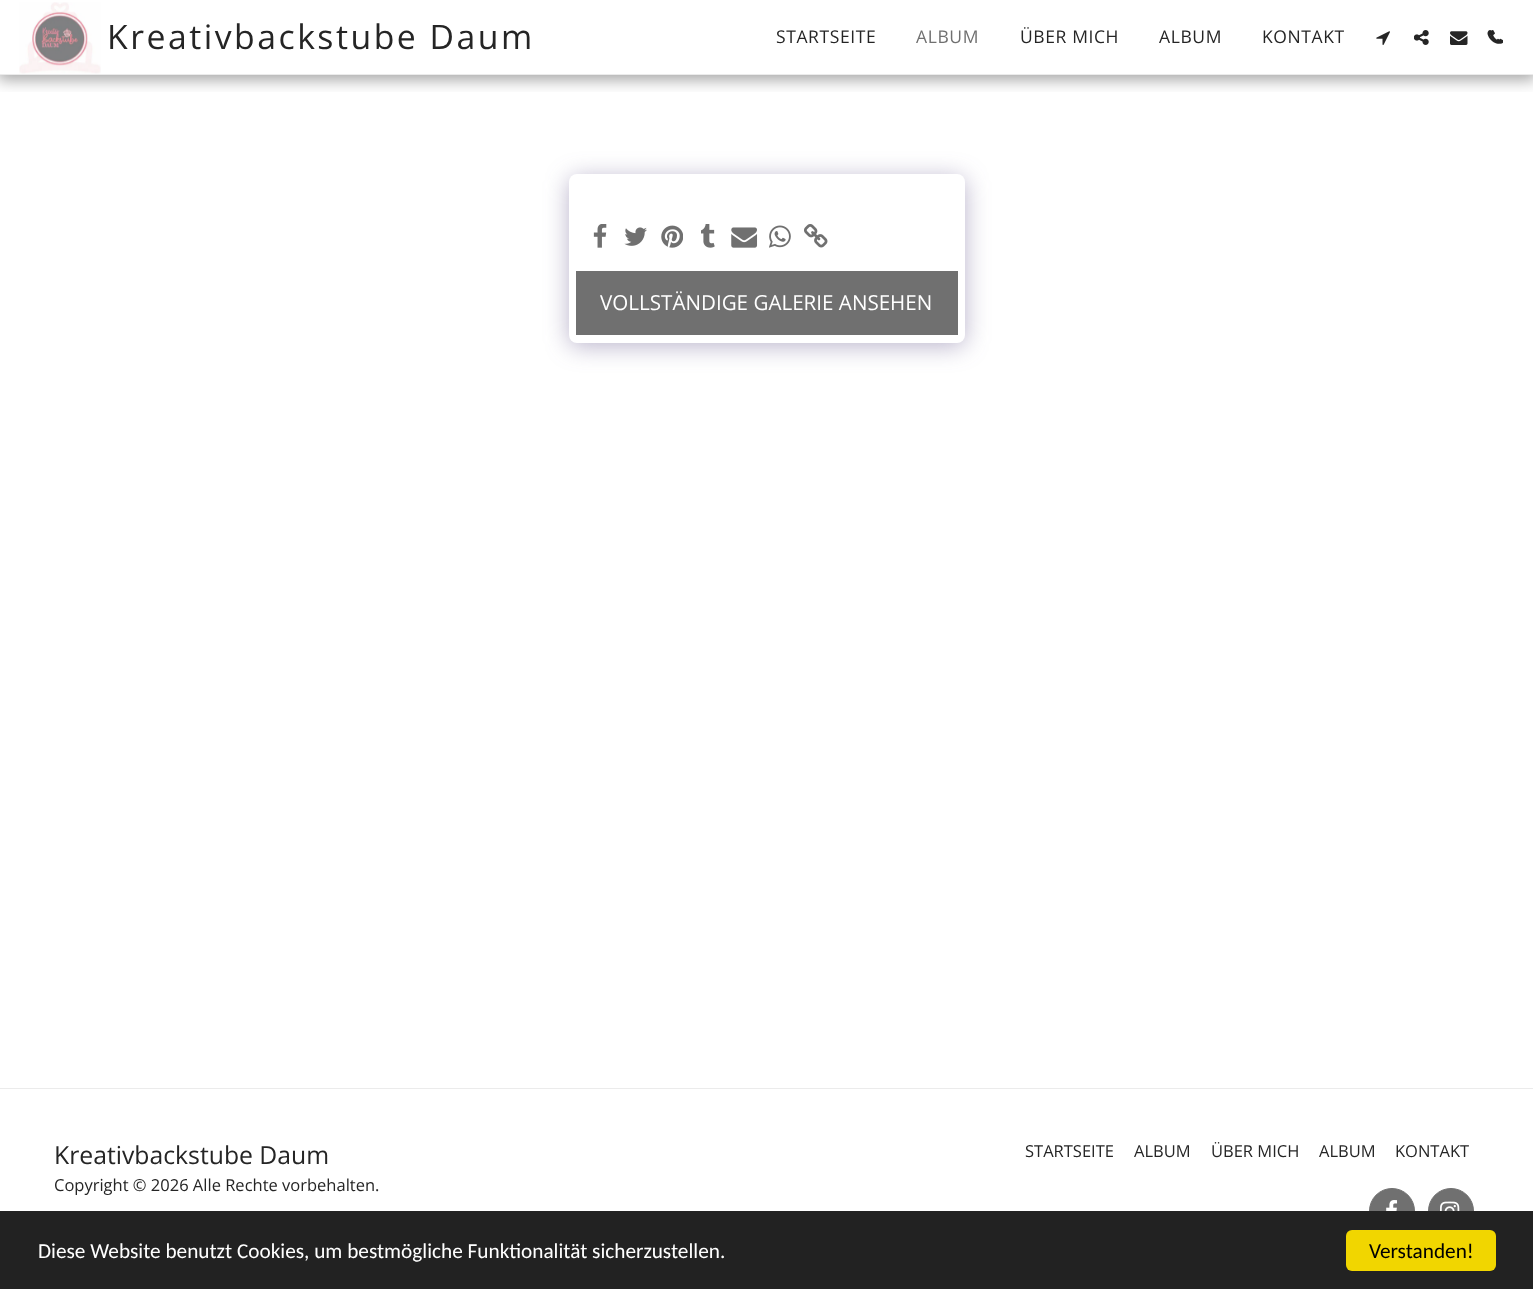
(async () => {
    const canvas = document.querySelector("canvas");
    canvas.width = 1533;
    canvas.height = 1289;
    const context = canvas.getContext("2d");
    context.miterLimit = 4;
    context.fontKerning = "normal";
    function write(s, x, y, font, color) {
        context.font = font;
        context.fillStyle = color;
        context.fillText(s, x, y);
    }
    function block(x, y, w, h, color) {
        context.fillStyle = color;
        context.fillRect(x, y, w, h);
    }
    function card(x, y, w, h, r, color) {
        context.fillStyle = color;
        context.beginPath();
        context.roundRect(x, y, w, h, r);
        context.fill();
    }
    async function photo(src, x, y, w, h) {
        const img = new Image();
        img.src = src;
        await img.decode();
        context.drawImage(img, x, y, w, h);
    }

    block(0, 0, 1533, 1289, "rgb(255, 255, 255)");
    context.save();
    context.beginPath();
    context.rect(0, 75, 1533, 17);
    context.clip();
    context.fillStyle = "rgba(0, 0, 0, 0.35)";
    context.filter = "blur(7.5px)";
    context.beginPath();
    context.rect(-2, 0, 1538, 80);
    context.fill();
    context.filter = "none";
    context.restore();
    block(0, 74, 1533, 1, "rgb(235, 235, 235)");
    await photo("media/1.png", 19, 2, 82, 72);
    context.letterSpacing = "2.5px";
    write("Kreativbackstube Daum", 107, 49, "33.75px Open Sans", "rgb(37, 37, 37)");
    context.letterSpacing = "0.6px";
    write("STARTSEITE", 776, 43, "17.5px Open Sans", "rgb(37, 37, 37)");
    write("ALBUM", 916, 43, "17.5px Open Sans", "rgb(112, 112, 112)");
    write("ÜBER MICH", 1020, 43, "17.5px Open Sans", "rgb(37, 37, 37)");
    write("ALBUM", 1159, 43, "17.5px Open Sans", "rgb(37, 37, 37)");
    write("KONTAKT", 1262, 43, "17.5px Open Sans", "rgb(37, 37, 37)");
    await photo("media/2.png", 1376, 31, 14, 14);
    await photo("media/3.png", 1414, 30, 15, 15);
    await photo("media/4.png", 1450, 31, 18, 14);
    await photo("media/5.png", 1490, 30, 13, 14);
    await photo("media/6.png", 1487, 30, 13, 14);
    context.fillStyle = "rgba(77, 63, 122, 0.4)";
    context.filter = "blur(12.5px)";
    context.beginPath();
    context.roundRect(569, 178, 396, 168, 8);
    context.fill();
    context.filter = "none";
    card(569, 174, 396, 169, 8, "rgb(255, 255, 255)");
    await photo("media/7.png", 593, 224, 14, 24);
    await photo("media/8.png", 624, 227, 23, 19);
    await photo("media/9.png", 661, 225, 22, 23);
    await photo("media/10.png", 701, 224, 14, 24);
    await photo("media/11.png", 731, 227, 27, 21);
    await photo("media/12.png", 769, 225, 22, 23);
    await photo("media/13.png", 804, 224, 24, 24);
    block(576, 271, 382, 64, "rgb(112, 112, 112)");
    context.letterSpacing = "0px";
    write("VOLLSTÄNDIGE GALERIE ANSEHEN", 600, 310, "20.6px Open Sans", "rgb(255, 255, 255)");
    block(0, 1088, 1533, 1, "rgb(235, 235, 235)");
    write("Kreativbackstube Daum", 54, 1164, "24.75px Open Sans", "rgb(37, 37, 37)");
    write("Copyright © 2026 Alle Rechte vorbehalten.", 54, 1191, "16.5px Open Sans", "rgb(37, 37, 37)");
    write("STARTSEITE", 1025, 1157, "16.5px Open Sans", "rgb(37, 37, 37)");
    write("ALBUM", 1134, 1157, "16.5px Open Sans", "rgb(37, 37, 37)");
    write("ÜBER MICH", 1211, 1157, "16.5px Open Sans", "rgb(37, 37, 37)");
    write("ALBUM", 1319, 1157, "16.5px Open Sans", "rgb(37, 37, 37)");
    write("KONTAKT", 1395, 1157, "16.5px Open Sans", "rgb(37, 37, 37)");
    context.fillStyle = "rgb(112, 112, 112)";
    context.beginPath();
    context.arc(1392, 1211, 22.5, 0, Math.PI * 2);
    context.fill();
    context.strokeStyle = "rgb(112, 112, 112)";
    context.stroke();
    await photo("media/14.png", 1386, 1200, 12, 11);
    context.beginPath();
    context.arc(1451, 1211, 22.5, 0, Math.PI * 2);
    context.fill();
    context.stroke();
    await photo("media/15.png", 1440, 1201, 20, 10);
    block(0, 1211, 1533, 78, "rgb(34, 34, 34)");
    write("Diese Website benutzt Cookies, um bestmögliche Funktionalität sicherzustellen.", 38, 1258, "21.25px Carlito", "rgb(255, 255, 255)");
    card(1346, 1230, 150, 41, 6, "rgb(241, 214, 0)");
    write("Verstanden!", 1369, 1258, "21.25px Carlito", "rgb(0, 0, 0)");
})();
